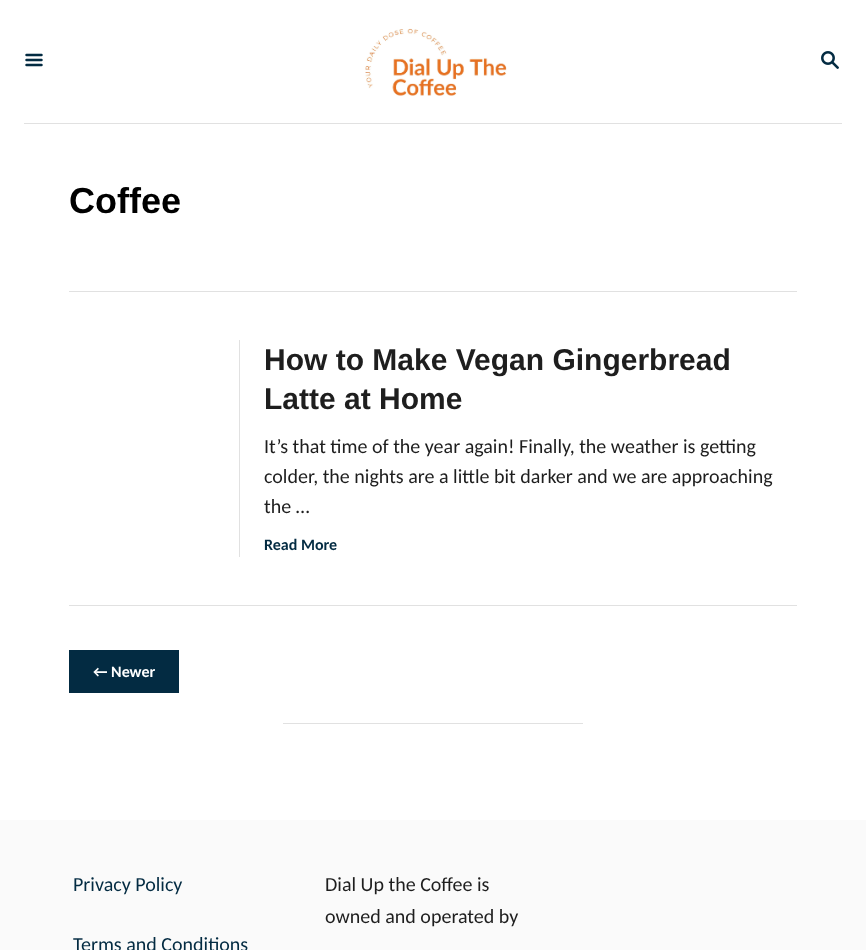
(async () => {
    const canvas = document.querySelector("canvas");
    canvas.width = 866;
    canvas.height = 950;
    const context = canvas.getContext("2d");
    context.miterLimit = 4;
    context.fontKerning = "normal";
    function write(s, x, y, font, color) {
        context.font = font;
        context.fillStyle = color;
        context.fillText(s, x, y);
    }
    function block(x, y, w, h, color) {
        context.fillStyle = color;
        context.fillRect(x, y, w, h);
    }
    async function photo(src, x, y, w, h) {
        const img = new Image();
        img.src = src;
        await img.decode();
        context.drawImage(img, x, y, w, h);
    }

    block(0, 0, 866, 950, "rgb(255, 255, 255)");
    block(24, 123, 818, 1, "rgb(225, 225, 225)");
    await photo("media/1.png", 25, 53, 18, 14);
    await photo("media/2.png", 365, 28, 142, 68);
    await photo("media/3.png", 821, 51, 18, 18);
    block(69, 291, 728, 1, "rgb(225, 225, 225)");
    write("Coffee", 69, 213, "bold 36px Liberation Sans", "rgb(0, 0, 0)");
    block(239, 340, 1, 217, "rgb(225, 225, 225)");
    write("How to Make Vegan Gingerbread", 264, 370, "bold 30px Liberation Sans", "rgb(30, 30, 30)");
    write("Latte at Home", 264, 409, "bold 30px Liberation Sans", "rgb(30, 30, 30)");
    write("It’s that time of the year again! Finally, the weather is getting", 264, 453, "20px Carlito", "rgb(30, 30, 30)");
    write("colder, the nights are a little bit darker and we are approaching", 264, 483, "20px Carlito", "rgb(30, 30, 30)");
    write("the …", 264, 513, "20px Carlito", "rgb(30, 30, 30)");
    write("Read More", 264, 550, "bold 16px Carlito", "rgb(3, 43, 66)");
    block(69, 605, 728, 1, "rgb(225, 225, 225)");
    block(69, 650, 110, 43, "rgb(3, 43, 66)");
    write("← Newer", 93, 677, "bold 16px Carlito", "rgb(255, 255, 255)");
    block(283, 723, 300, 1, "rgb(225, 225, 225)");
    block(0, 820, 866, 130, "rgb(250, 250, 250)");
    write("Privacy Policy", 73, 891, "20px Carlito", "rgb(3, 43, 66)");
    write("Terms and Conditions", 73, 951, "20px Carlito", "rgb(3, 43, 66)");
    write("Dial Up the Coffee is", 325, 891, "20px Carlito", "rgb(30, 30, 30)");
    write("owned and operated by", 325, 923, "20px Carlito", "rgb(30, 30, 30)");
})();
